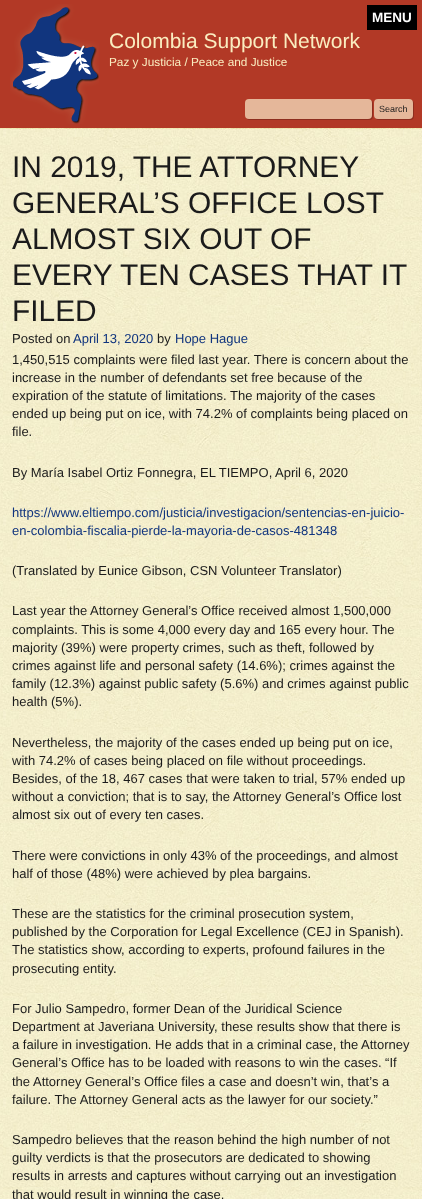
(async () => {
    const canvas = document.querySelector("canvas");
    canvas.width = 422;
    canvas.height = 1199;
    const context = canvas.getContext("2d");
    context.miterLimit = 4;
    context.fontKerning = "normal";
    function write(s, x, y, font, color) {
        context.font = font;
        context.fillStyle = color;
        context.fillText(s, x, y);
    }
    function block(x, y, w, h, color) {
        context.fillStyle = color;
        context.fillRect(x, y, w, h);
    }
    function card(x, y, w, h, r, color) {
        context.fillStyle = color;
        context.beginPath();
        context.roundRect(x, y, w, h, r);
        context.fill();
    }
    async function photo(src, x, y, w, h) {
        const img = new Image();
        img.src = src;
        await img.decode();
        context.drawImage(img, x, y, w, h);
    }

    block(0, 0, 422, 1199, "rgb(255, 255, 255)");
    await photo("media/1.png", 0, 128, 422, 1);
    block(0, 0, 422, 128, "rgb(178, 57, 38)");
    block(367, 5, 50, 25, "rgb(0, 0, 0)");
    write("MENU", 372, 22, "bold 13.5px Liberation Sans", "rgb(255, 255, 255)");
    await photo("media/2.png", 10, 4, 89, 120);
    write("Colombia Support Network", 109, 48, "21px Liberation Sans", "rgb(250, 237, 192)");
    write("Paz y Justicia / Peace and Justice", 109, 66, "11.8px Liberation Sans", "rgb(250, 237, 192)");
    context.fillStyle = "rgba(0, 0, 0, 0.2)";
    context.filter = "blur(0.5px)";
    context.beginPath();
    context.roundRect(246, 100, 127, 20, 4);
    context.fill();
    context.filter = "none";
    card(245, 99, 127, 20, 4, "rgb(229, 183, 154)");
    context.fillStyle = "rgba(0, 0, 0, 0.2)";
    context.filter = "blur(0.5px)";
    context.beginPath();
    context.roundRect(375, 100, 39, 20, 4);
    context.fill();
    context.filter = "none";
    card(374, 99, 39, 20, 4, "rgb(229, 183, 154)");
    write("Search", 379, 112, "9px Liberation Sans", "rgb(27, 27, 27)");
    await photo("media/3.png", 0, 129, 422, 1070);
    write("IN 2019, THE ATTORNEY", 12, 177, "29.9px Liberation Sans", "rgb(27, 27, 27)");
    write("GENERAL’S OFFICE LOST", 12, 213, "29.9px Liberation Sans", "rgb(27, 27, 27)");
    write("ALMOST SIX OUT OF", 12, 249, "29.9px Liberation Sans", "rgb(27, 27, 27)");
    write("EVERY TEN CASES THAT IT", 12, 285, "29.9px Liberation Sans", "rgb(27, 27, 27)");
    write("FILED", 12, 321, "29.9px Liberation Sans", "rgb(27, 27, 27)");
    write("Posted on", 12, 343, "13px Liberation Sans", "rgb(27, 27, 27)");
    write("April 13, 2020", 73, 343, "13px Liberation Sans", "rgb(17, 53, 126)");
    write("by", 157, 343, "13px Liberation Sans", "rgb(27, 27, 27)");
    write("Hope Hague", 175, 343, "13px Liberation Sans", "rgb(17, 53, 126)");
    write("1,450,515 complaints were filed last year. There is concern about the", 12, 364, "13px Liberation Sans", "rgb(27, 27, 27)");
    write("increase in the number of defendants set free because of the", 12, 382, "13px Liberation Sans", "rgb(27, 27, 27)");
    write("expiration of the statute of limitations. The majority of the cases", 12, 400, "13px Liberation Sans", "rgb(27, 27, 27)");
    write("ended up being put on ice, with 74.2% of complaints being placed on", 12, 418, "13px Liberation Sans", "rgb(27, 27, 27)");
    write("file.", 12, 436, "13px Liberation Sans", "rgb(27, 27, 27)");
    write("By María Isabel Ortiz Fonnegra,", 12, 477, "13px Liberation Sans", "rgb(27, 27, 27)");
    write("EL TIEMPO,", 200, 477, "13px Liberation Sans", "rgb(27, 27, 27)");
    write("April 6, 2020", 275, 477, "13px Liberation Sans", "rgb(27, 27, 27)");
    write("https://www.eltiempo.com/justicia/investigacion/sentencias-en-juicio-", 12, 517, "13px Liberation Sans", "rgb(17, 53, 126)");
    write("en-colombia-fiscalia-pierde-la-mayoria-de-casos-481348", 12, 535, "13px Liberation Sans", "rgb(17, 53, 126)");
    write("(Translated by Eunice Gibson, CSN Volunteer Translator)", 12, 575, "13px Liberation Sans", "rgb(27, 27, 27)");
    write("Last year the Attorney General’s Office received almost 1,500,000", 12, 615, "13px Liberation Sans", "rgb(27, 27, 27)");
    write("complaints. This is some 4,000 every day and 165 every hour. The", 12, 634, "13px Liberation Sans", "rgb(27, 27, 27)");
    write("majority (39%) were property crimes, such as theft, followed by", 12, 652, "13px Liberation Sans", "rgb(27, 27, 27)");
    write("crimes against life and personal safety (14.6%); crimes against the", 12, 670, "13px Liberation Sans", "rgb(27, 27, 27)");
    write("family (12.3%) against public safety (5.6%) and crimes against public", 12, 688, "13px Liberation Sans", "rgb(27, 27, 27)");
    write("health (5%).", 12, 706, "13px Liberation Sans", "rgb(27, 27, 27)");
    write("Nevertheless, the majority of the cases ended up being put on ice,", 12, 747, "13px Liberation Sans", "rgb(27, 27, 27)");
    write("with 74.2% of cases being placed on file without proceedings.", 12, 765, "13px Liberation Sans", "rgb(27, 27, 27)");
    write("Besides, of the 18, 467 cases that were taken to trial, 57% ended up", 12, 783, "13px Liberation Sans", "rgb(27, 27, 27)");
    write("without a conviction; that is to say, the Attorney General’s Office lost", 12, 801, "13px Liberation Sans", "rgb(27, 27, 27)");
    write("almost six out of every ten cases.", 12, 819, "13px Liberation Sans", "rgb(27, 27, 27)");
    write("There were convictions in only 43% of the proceedings, and almost", 12, 860, "13px Liberation Sans", "rgb(27, 27, 27)");
    write("half of those (48%) were achieved by plea bargains.", 12, 878, "13px Liberation Sans", "rgb(27, 27, 27)");
    write("These are the statistics for the criminal prosecution system,", 12, 918, "13px Liberation Sans", "rgb(27, 27, 27)");
    write("published by the Corporation for Legal Excellence (CEJ in Spanish).", 12, 936, "13px Liberation Sans", "rgb(27, 27, 27)");
    write("The statistics show, according to experts, profound failures in the", 12, 954, "13px Liberation Sans", "rgb(27, 27, 27)");
    write("prosecuting entity.", 12, 973, "13px Liberation Sans", "rgb(27, 27, 27)");
    write("For Julio Sampedro, former Dean of the Juridical Science", 12, 1013, "13px Liberation Sans", "rgb(27, 27, 27)");
    write("Department at Javeriana University, these results show that there is", 12, 1031, "13px Liberation Sans", "rgb(27, 27, 27)");
    write("a failure in investigation. He adds that in a criminal case, the Attorney", 12, 1049, "13px Liberation Sans", "rgb(27, 27, 27)");
    write("General’s Office has to be loaded with reasons to win the cases. “If", 12, 1067, "13px Liberation Sans", "rgb(27, 27, 27)");
    write("the Attorney General’s Office files a case and doesn’t win, that’s a", 12, 1086, "13px Liberation Sans", "rgb(27, 27, 27)");
    write("failure. The Attorney General acts as the lawyer for our society.”", 12, 1104, "13px Liberation Sans", "rgb(27, 27, 27)");
    write("Sampedro believes that the reason behind the high number of not", 12, 1144, "13px Liberation Sans", "rgb(27, 27, 27)");
    write("guilty verdicts is that the prosecutors are dedicated to showing", 12, 1162, "13px Liberation Sans", "rgb(27, 27, 27)");
    write("results in arrests and captures without carrying out an investigation", 12, 1180, "13px Liberation Sans", "rgb(27, 27, 27)");
    write("that would result in winning the case.", 12, 1199, "13px Liberation Sans", "rgb(27, 27, 27)");
})();
